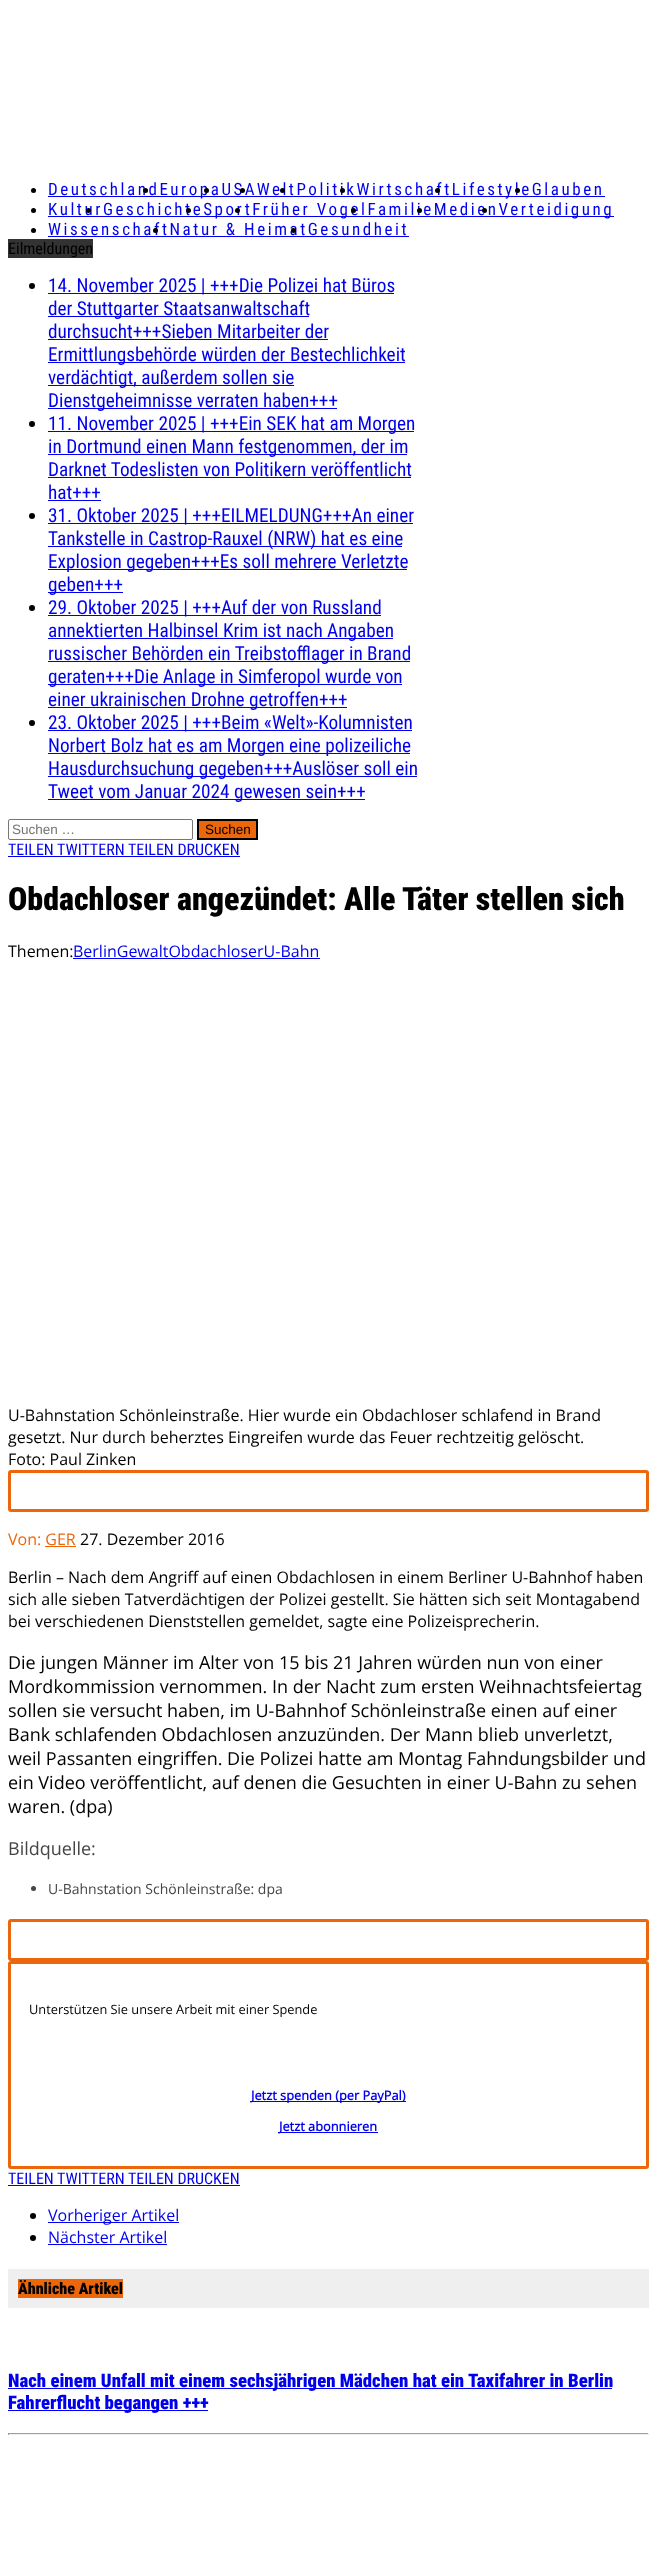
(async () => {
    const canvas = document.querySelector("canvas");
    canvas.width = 657;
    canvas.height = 2550;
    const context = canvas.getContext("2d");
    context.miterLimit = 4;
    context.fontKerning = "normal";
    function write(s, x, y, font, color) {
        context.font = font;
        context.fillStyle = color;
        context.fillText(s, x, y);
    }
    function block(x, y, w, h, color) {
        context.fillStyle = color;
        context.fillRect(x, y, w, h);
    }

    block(0, 0, 657, 2550, "rgb(255, 255, 255)");
    context.fillStyle = "rgb(0, 0, 0)";
    context.beginPath();
    context.arc(33.5, 190.5, 2.5, 0, Math.PI * 2);
    context.fill();
    block(48, 196, 557, 1, "rgb(0, 0, 238)");
    context.letterSpacing = "2.55px";
    write("DeutschlandEuropaUSAWeltPolitikWirtschaftLifestyleGlauben", 48, 195, "17px Roboto Condensed", "rgb(0, 0, 238)");
    context.fillStyle = "rgb(0, 0, 0)";
    context.beginPath();
    context.arc(145.5, 190.5, 2.5, 0, Math.PI * 2);
    context.fill();
    context.beginPath();
    context.arc(206.5, 190.5, 2.5, 0, Math.PI * 2);
    context.fill();
    context.beginPath();
    context.arc(242.5, 190.5, 2.5, 0, Math.PI * 2);
    context.fill();
    context.beginPath();
    context.arc(282.5, 190.5, 2.5, 0, Math.PI * 2);
    context.fill();
    context.beginPath();
    context.arc(342.5, 190.5, 2.5, 0, Math.PI * 2);
    context.fill();
    context.beginPath();
    context.arc(437.5, 190.5, 2.5, 0, Math.PI * 2);
    context.fill();
    context.beginPath();
    context.arc(517.5, 190.5, 2.5, 0, Math.PI * 2);
    context.fill();
    context.beginPath();
    context.arc(33.5, 210.5, 2.5, 0, Math.PI * 2);
    context.fill();
    block(48, 216, 566, 1, "rgb(0, 0, 238)");
    write("KulturGeschichteSportFrüher VogelFamilieMedienVerteidigung", 48, 215, "17px Roboto Condensed", "rgb(0, 0, 238)");
    context.fillStyle = "rgb(0, 0, 0)";
    context.beginPath();
    context.arc(88.5, 210.5, 2.5, 0, Math.PI * 2);
    context.fill();
    context.beginPath();
    context.arc(188.5, 210.5, 2.5, 0, Math.PI * 2);
    context.fill();
    context.beginPath();
    context.arc(237.5, 210.5, 2.5, 0, Math.PI * 2);
    context.fill();
    context.beginPath();
    context.arc(353.5, 210.5, 2.5, 0, Math.PI * 2);
    context.fill();
    context.beginPath();
    context.arc(419.5, 210.5, 2.5, 0, Math.PI * 2);
    context.fill();
    context.beginPath();
    context.arc(484.5, 210.5, 2.5, 0, Math.PI * 2);
    context.fill();
    context.beginPath();
    context.arc(33.5, 230.5, 2.5, 0, Math.PI * 2);
    context.fill();
    write("WissenschaftNatur & HeimatGesundheit", 48, 235, "17px Roboto Condensed", "rgb(0, 0, 238)");
    block(48, 236, 361, 1, "rgb(0, 0, 238)");
    context.fillStyle = "rgb(0, 0, 0)";
    context.beginPath();
    context.arc(155.5, 230.5, 2.5, 0, Math.PI * 2);
    context.fill();
    context.beginPath();
    context.arc(293.5, 230.5, 2.5, 0, Math.PI * 2);
    context.fill();
    block(8, 239, 85, 19, "rgb(51, 51, 51)");
    context.letterSpacing = "0px";
    write("Eilmeldungen", 8, 254, "16px Roboto Condensed", "rgb(0, 0, 0)");
    context.beginPath();
    context.arc(32, 286, 3, 0, Math.PI * 2);
    context.fill();
    block(48, 293, 346, 1, "rgb(0, 0, 238)");
    write("14. November 2025 | +++Die Polizei hat Büros", 48, 292, "19.25px Roboto Condensed", "rgb(0, 0, 238)");
    block(48, 316, 261, 1, "rgb(0, 0, 238)");
    write("der Stuttgarter Staatsanwaltschaft", 48, 315, "19.25px Roboto Condensed", "rgb(0, 0, 238)");
    write("durchsucht+++Sieben Mitarbeiter der", 48, 338, "19.25px Roboto Condensed", "rgb(0, 0, 238)");
    block(48, 339, 280, 1, "rgb(0, 0, 238)");
    block(48, 362, 357, 1, "rgb(0, 0, 238)");
    write("Ermittlungsbehörde würden der Bestechlichkeit", 48, 361, "19.25px Roboto Condensed", "rgb(0, 0, 238)");
    block(48, 385, 246, 1, "rgb(0, 0, 238)");
    write("verdächtigt, außerdem sollen sie", 48, 384, "19.25px Roboto Condensed", "rgb(0, 0, 238)");
    block(48, 408, 289, 1, "rgb(0, 0, 238)");
    write("Dienstgeheimnisse verraten haben+++", 48, 407, "19.25px Roboto Condensed", "rgb(0, 0, 238)");
    context.fillStyle = "rgb(0, 0, 0)";
    context.beginPath();
    context.arc(32, 424, 3, 0, Math.PI * 2);
    context.fill();
    block(48, 431, 366, 1, "rgb(0, 0, 238)");
    write("11. November 2025 | +++Ein SEK hat am Morgen", 48, 430, "19.25px Roboto Condensed", "rgb(0, 0, 238)");
    block(48, 454, 359, 1, "rgb(0, 0, 238)");
    write("in Dortmund einen Mann festgenommen, der im", 48, 453, "19.25px Roboto Condensed", "rgb(0, 0, 238)");
    write("Darknet Todeslisten von Politikern veröffentlicht", 48, 476, "19.25px Roboto Condensed", "rgb(0, 0, 238)");
    block(48, 477, 363, 1, "rgb(0, 0, 238)");
    write("hat+++", 48, 499, "19.25px Roboto Condensed", "rgb(0, 0, 238)");
    block(48, 500, 53, 1, "rgb(0, 0, 238)");
    context.fillStyle = "rgb(0, 0, 0)";
    context.beginPath();
    context.arc(32, 516, 3, 0, Math.PI * 2);
    context.fill();
    block(48, 523, 365, 1, "rgb(0, 0, 238)");
    write("31. Oktober 2025 | +++EILMELDUNG+++An einer", 48, 522, "19.25px Roboto Condensed", "rgb(0, 0, 238)");
    block(48, 546, 354, 1, "rgb(0, 0, 238)");
    write("Tankstelle in Castrop-Rauxel (NRW) hat es eine", 48, 545, "19.25px Roboto Condensed", "rgb(0, 0, 238)");
    block(48, 569, 359, 1, "rgb(0, 0, 238)");
    write("Explosion gegeben+++Es soll mehrere Verletzte", 48, 568, "19.25px Roboto Condensed", "rgb(0, 0, 238)");
    block(48, 592, 75, 1, "rgb(0, 0, 238)");
    write("geben+++", 48, 591, "19.25px Roboto Condensed", "rgb(0, 0, 238)");
    context.fillStyle = "rgb(0, 0, 0)";
    context.beginPath();
    context.arc(32, 608, 3, 0, Math.PI * 2);
    context.fill();
    block(48, 615, 333, 1, "rgb(0, 0, 238)");
    write("29. Oktober 2025 | +++Auf der von Russland", 48, 614, "19.25px Roboto Condensed", "rgb(0, 0, 238)");
    block(48, 638, 345, 1, "rgb(0, 0, 238)");
    write("annektierten Halbinsel Krim ist nach Angaben", 48, 637, "19.25px Roboto Condensed", "rgb(0, 0, 238)");
    block(48, 661, 362, 1, "rgb(0, 0, 238)");
    write("russischer Behörden ein Treibstofflager in Brand", 48, 660, "19.25px Roboto Condensed", "rgb(0, 0, 238)");
    block(48, 684, 354, 1, "rgb(0, 0, 238)");
    write("geraten+++Die Anlage in Simferopol wurde von", 48, 683, "19.25px Roboto Condensed", "rgb(0, 0, 238)");
    block(48, 707, 299, 1, "rgb(0, 0, 238)");
    write("einer ukrainischen Drohne getroffen+++", 48, 706, "19.25px Roboto Condensed", "rgb(0, 0, 238)");
    context.fillStyle = "rgb(0, 0, 0)";
    context.beginPath();
    context.arc(32, 723, 3, 0, Math.PI * 2);
    context.fill();
    block(48, 730, 364, 1, "rgb(0, 0, 238)");
    write("23. Oktober 2025 | +++Beim «Welt»-Kolumnisten", 48, 729, "19.25px Roboto Condensed", "rgb(0, 0, 238)");
    block(48, 753, 362, 1, "rgb(0, 0, 238)");
    write("Norbert Bolz hat es am Morgen eine polizeiliche", 48, 752, "19.25px Roboto Condensed", "rgb(0, 0, 238)");
    block(48, 776, 369, 1, "rgb(0, 0, 238)");
    write("Hausdurchsuchung gegeben+++Auslöser soll ein", 48, 775, "19.25px Roboto Condensed", "rgb(0, 0, 238)");
    block(48, 799, 317, 1, "rgb(0, 0, 238)");
    write("Tweet vom Januar 2024 gewesen sein+++", 48, 798, "19.25px Roboto Condensed", "rgb(0, 0, 238)");
    context.beginPath();
    context.roundRect(8.5, 819.5, 184, 20, 1.5);
    context.strokeStyle = "rgb(118, 118, 118)";
    context.stroke();
    write("Suchen …", 12, 834, "13.5px Liberation Sans", "rgb(117, 117, 117)");
    context.fillStyle = "rgb(236, 103, 11)";
    context.beginPath();
    context.rect(198, 820, 59, 19);
    context.fill();
    context.strokeStyle = "rgb(0, 0, 0)";
    context.lineWidth = 2;
    context.stroke();
    write("Suchen", 205, 834, "13.5px Liberation Sans", "rgb(0, 0, 0)");
    write("TEILEN", 8, 855, "16px Roboto Condensed", "rgb(0, 0, 238)");
    block(8, 856, 232, 1, "rgb(0, 0, 238)");
    write("TWITTERN", 57, 855, "16px Roboto Condensed", "rgb(0, 0, 238)");
    write("TEILEN DRUCKEN", 128, 855, "16px Roboto Condensed", "rgb(0, 0, 238)");
    write("Obdachloser angezündet: Alle Täter stellen sich", 8, 910, "900 32px Roboto Condensed", "rgb(0, 0, 0)");
    write("Themen:", 8, 957, "16px Open Sans", "rgb(0, 0, 0)");
    write("BerlinGewaltObdachloserU-Bahn", 73, 957, "16px Open Sans", "rgb(0, 0, 238)");
    block(73, 958, 247, 1, "rgb(0, 0, 238)");
    write("U-Bahnstation Schönleinstraße. Hier wurde ein Obdachloser schlafend in Brand", 8, 1421, "16px Open Sans", "rgb(0, 0, 0)");
    write("gesetzt. Nur durch beherztes Eingreifen wurde das Feuer rechtzeitig gelöscht.", 8, 1443, "16px Open Sans", "rgb(0, 0, 0)");
    write("Foto: Paul Zinken", 8, 1465, "16px Open Sans", "rgb(0, 0, 0)");
    context.beginPath();
    context.roundRect(9.5, 1471.5, 638, 39, 1.5);
    context.strokeStyle = "rgb(236, 103, 11)";
    context.lineWidth = 3;
    context.stroke();
    write("Von: GER", 8, 1545, "16px Open Sans", "rgb(236, 103, 11)");
    block(45, 1546, 31, 1, "rgb(236, 103, 11)");
    write("27. Dezember 2016", 80, 1545, "16px Open Sans", "rgb(0, 0, 0)");
    write("Berlin – Nach dem Angriff auf einen Obdachlosen in einem Berliner U-Bahnhof haben", 8, 1583, "16px Open Sans", "rgb(0, 0, 0)");
    write("sich alle sieben Tatverdächtigen der Polizei gestellt. Sie hätten sich seit Montagabend", 8, 1605, "16px Open Sans", "rgb(0, 0, 0)");
    write("bei verschiedenen Dienststellen gemeldet, sagte eine Polizeisprecherin.", 8, 1627, "16px Open Sans", "rgb(0, 0, 0)");
    write("Die jungen Männer im Alter von 15 bis 21 Jahren würden nun von einer", 8, 1669, "18px Open Sans", "rgb(0, 0, 0)");
    write("Mordkommission vernommen. In der Nacht zum ersten Weihnachtsfeiertag", 8, 1693, "18px Open Sans", "rgb(0, 0, 0)");
    write("sollen sie versucht haben, im U-Bahnhof Schönleinstraße einen auf einer", 8, 1717, "18px Open Sans", "rgb(0, 0, 0)");
    write("Bank schlafenden Obdachlosen anzuzünden. Der Mann blieb unverletzt,", 8, 1741, "18px Open Sans", "rgb(0, 0, 0)");
    write("weil Passanten eingriffen. Die Polizei hatte am Montag Fahndungsbilder und", 8, 1765, "18px Open Sans", "rgb(0, 0, 0)");
    write("ein Video veröffentlicht, auf denen die Gesuchten in einer U-Bahn zu sehen", 8, 1789, "18px Open Sans", "rgb(0, 0, 0)");
    write("waren. (dpa)", 8, 1813, "18px Open Sans", "rgb(0, 0, 0)");
    write("Bildquelle:", 8, 1855, "18px Open Sans", "rgb(69, 69, 69)");
    context.beginPath();
    context.arc(33.5, 1888.5, 2.5, 0, Math.PI * 2);
    context.fill();
    write("U-Bahnstation Schönleinstraße: dpa", 48, 1894, "14px Open Sans", "rgb(69, 69, 69)");
    context.beginPath();
    context.roundRect(9.5, 1920.5, 638, 39, 1.5);
    context.stroke();
    context.beginPath();
    context.roundRect(9.5, 1962.5, 638, 205, 1.5);
    context.stroke();
    write("Unterstützen Sie unsere Arbeit mit einer Spende", 29, 2014, "12.8px Open Sans", "rgb(0, 0, 0)");
    block(251, 2101, 155, 1, "rgb(0, 0, 238)");
    write("Jetzt spenden (per PayPal)", 251, 2100, "bold 12.8px Open Sans", "rgb(0, 0, 238)");
    block(279, 2132, 99, 1, "rgb(0, 0, 238)");
    write("Jetzt abonnieren", 279, 2131, "bold 12.8px Open Sans", "rgb(0, 0, 238)");
    write("TEILEN", 8, 2184, "16px Roboto Condensed", "rgb(0, 0, 238)");
    block(8, 2185, 232, 1, "rgb(0, 0, 238)");
    write("TWITTERN", 57, 2184, "16px Roboto Condensed", "rgb(0, 0, 238)");
    write("TEILEN DRUCKEN", 128, 2184, "16px Roboto Condensed", "rgb(0, 0, 238)");
    context.fillStyle = "rgb(0, 0, 0)";
    context.beginPath();
    context.arc(33, 2216, 3, 0, Math.PI * 2);
    context.fill();
    block(48, 2222, 131, 1, "rgb(0, 0, 238)");
    write("Vorheriger Artikel", 48, 2221, "16px Open Sans", "rgb(0, 0, 238)");
    context.fillStyle = "rgb(0, 0, 0)";
    context.beginPath();
    context.arc(33, 2238, 3, 0, Math.PI * 2);
    context.fill();
    write("Nächster Artikel", 48, 2243, "16px Open Sans", "rgb(0, 0, 238)");
    block(48, 2244, 119, 1, "rgb(0, 0, 238)");
    block(8, 2269, 641, 39, "rgb(239, 239, 239)");
    block(18, 2279, 105, 19, "rgb(236, 103, 11)");
    write("Ähnliche Artikel", 18, 2294, "900 16px Roboto Condensed", "rgb(0, 0, 0)");
    block(8, 2388, 604, 1, "rgb(0, 0, 238)");
    write("Nach einem Unfall mit einem sechsjährigen Mädchen hat ein Taxifahrer in Berlin", 8, 2387, "900 18.75px Roboto Condensed", "rgb(0, 0, 238)");
    block(8, 2410, 200, 1, "rgb(0, 0, 238)");
    write("Fahrerflucht begangen +++", 8, 2409, "900 18.75px Roboto Condensed", "rgb(0, 0, 238)");
    block(8, 2433, 641, 1, "rgb(159, 159, 159)");
    block(648, 2433, 1, 2, "rgb(238, 238, 238)");
    block(8, 2434, 641, 1, "rgb(238, 238, 238)");
    block(8, 2433, 1, 2, "rgb(159, 159, 159)");
})();
